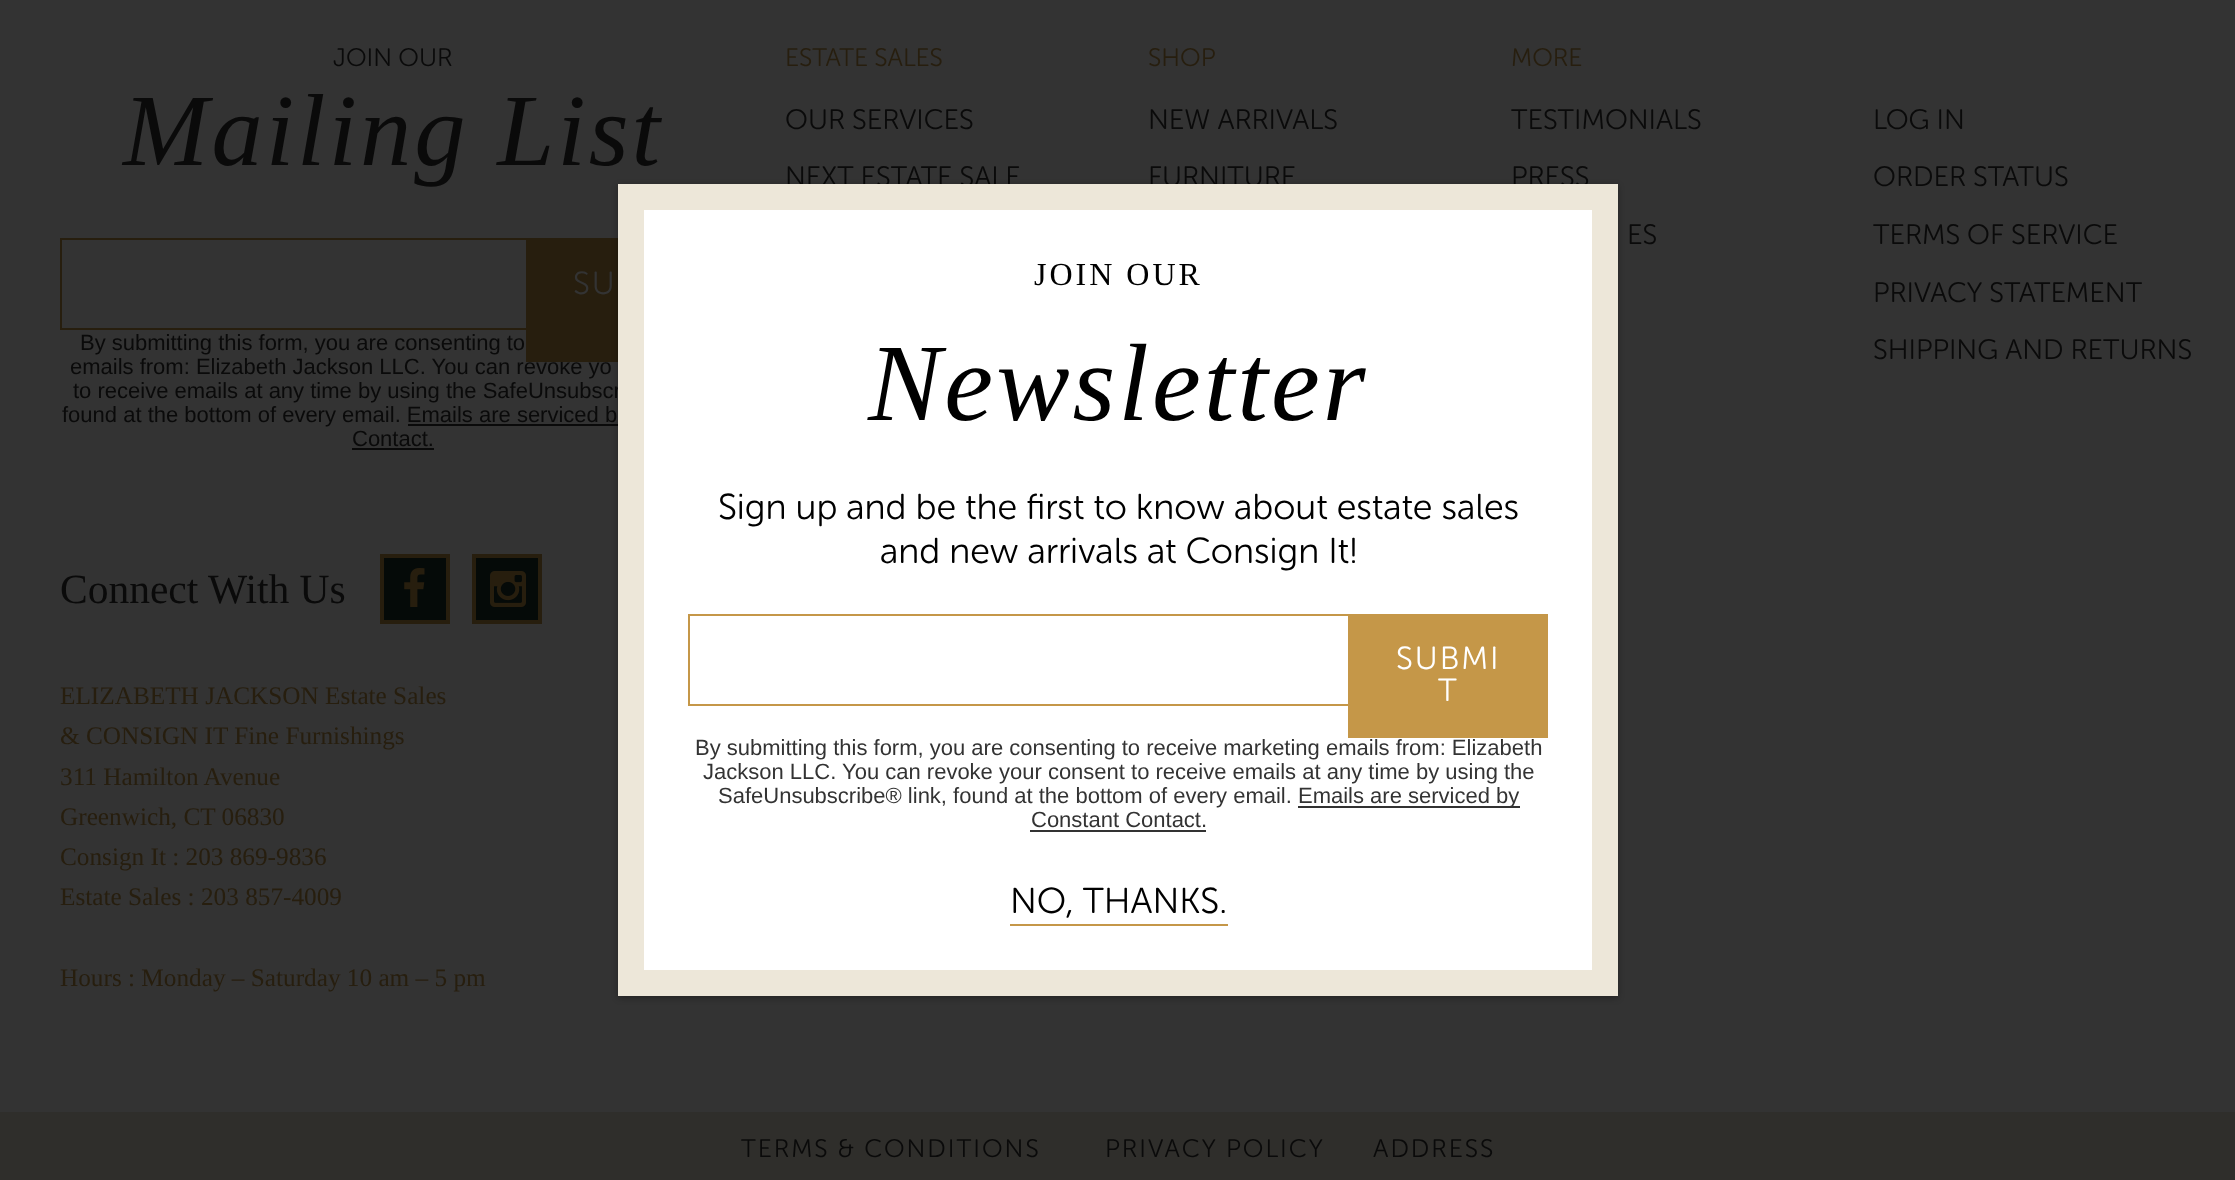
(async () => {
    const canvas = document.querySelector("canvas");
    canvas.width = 2235;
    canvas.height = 1180;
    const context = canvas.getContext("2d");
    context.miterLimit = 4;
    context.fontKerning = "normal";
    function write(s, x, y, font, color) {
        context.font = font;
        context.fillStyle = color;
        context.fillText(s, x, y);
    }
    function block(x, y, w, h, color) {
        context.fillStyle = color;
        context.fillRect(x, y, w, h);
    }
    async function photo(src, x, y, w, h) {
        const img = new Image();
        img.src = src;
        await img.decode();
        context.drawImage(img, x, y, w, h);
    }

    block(0, 0, 2235, 1180, "rgb(51, 51, 51)");
    write("JOIN OUR", 333, 66, "300 25.25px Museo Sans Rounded", "rgb(10, 10, 10)");
    context.letterSpacing = "3px";
    write("Mailing List", 123, 165, "italic 102.5px Liberation Serif", "rgb(10, 10, 10)");
    context.strokeStyle = "rgb(39, 30, 14)";
    context.lineWidth = 2;
    context.strokeRect(61, 239, 664, 90);
    context.letterSpacing = "0px";
    write("emails from: Elizabeth Jackson LLC. You can revoke yo", 70, 374, "22px Liberation Sans", "rgb(10, 10, 10)");
    block(526, 240, 92, 122, "rgb(39, 30, 14)");
    context.letterSpacing = "2px";
    write("SU", 573, 294, "300 32px Museo Sans Rounded", "rgb(51, 51, 51)");
    context.letterSpacing = "0px";
    write("By submitting this form, you are consenting to", 80, 350, "22px Liberation Sans", "rgb(10, 10, 10)");
    write("to receive emails at any time by using the SafeUnsubscr", 73, 398, "22px Liberation Sans", "rgb(10, 10, 10)");
    write("found at the bottom of every email. Emails are serviced b", 62, 422, "22px Liberation Sans", "rgb(10, 10, 10)");
    write("Contact.", 352, 446, "22px Liberation Sans", "rgb(10, 10, 10)");
    block(408, 424, 210, 2, "rgb(10, 10, 10)");
    block(352, 448, 82, 2, "rgb(10, 10, 10)");
    write("Connect With Us", 60, 603, "41.5px Liberation Serif", "rgb(10, 10, 10)");
    context.fillStyle = "rgb(5, 10, 8)";
    context.beginPath();
    context.rect(382, 556, 66, 66);
    context.fill();
    context.lineWidth = 4;
    context.stroke();
    await photo("media/1.png", 404, 568, 21, 39);
    context.beginPath();
    context.rect(474, 556, 66, 66);
    context.fill();
    context.stroke();
    await photo("media/2.png", 490, 571, 36, 36);
    write("ELIZABETH JACKSON Estate Sales", 60, 704, "25.25px Liberation Serif", "rgb(39, 30, 14)");
    write("& CONSIGN IT Fine Furnishings", 60, 744, "25.25px Liberation Serif", "rgb(39, 30, 14)");
    write("311 Hamilton Avenue", 60, 785, "25.25px Liberation Serif", "rgb(39, 30, 14)");
    write("Greenwich, CT 06830", 60, 825, "25.25px Liberation Serif", "rgb(39, 30, 14)");
    write("Consign It : 203 869-9836", 60, 865, "25.25px Liberation Serif", "rgb(39, 30, 14)");
    write("Estate Sales : 203 857-4009", 60, 905, "25.25px Liberation Serif", "rgb(39, 30, 14)");
    write("Hours : Monday – Saturday 10 am – 5 pm", 60, 986, "25.25px Liberation Serif", "rgb(39, 30, 14)");
    write("ESTATE SALES", 785, 66, "300 25.25px Museo Sans Rounded", "rgb(39, 30, 14)");
    write("OUR SERVICES", 785, 129, "300 28px Museo Sans Rounded", "rgb(10, 10, 10)");
    write("NEXT ESTATE SALE", 785, 186, "300 28px Museo Sans Rounded", "rgb(10, 10, 10)");
    write("SHOP", 1148, 66, "300 25.25px Museo Sans Rounded", "rgb(39, 30, 14)");
    write("NEW ARRIVALS", 1148, 129, "300 28px Museo Sans Rounded", "rgb(10, 10, 10)");
    write("FURNITURE", 1148, 186, "300 28px Museo Sans Rounded", "rgb(10, 10, 10)");
    write("MORE", 1511, 66, "300 25.25px Museo Sans Rounded", "rgb(39, 30, 14)");
    write("TESTIMONIALS", 1511, 129, "300 28px Museo Sans Rounded", "rgb(10, 10, 10)");
    write("PRESS", 1511, 186, "300 28px Museo Sans Rounded", "rgb(10, 10, 10)");
    write("ES", 1627, 244, "300 28px Museo Sans Rounded", "rgb(10, 10, 10)");
    write("LOG IN", 1873, 129, "300 28px Museo Sans Rounded", "rgb(10, 10, 10)");
    write("ORDER STATUS", 1873, 186, "300 28px Museo Sans Rounded", "rgb(10, 10, 10)");
    write("TERMS OF SERVICE", 1873, 244, "300 28px Museo Sans Rounded", "rgb(10, 10, 10)");
    write("PRIVACY STATEMENT", 1873, 302, "300 28px Museo Sans Rounded", "rgb(10, 10, 10)");
    write("SHIPPING AND RETURNS", 1873, 359, "300 28px Museo Sans Rounded", "rgb(10, 10, 10)");
    block(0, 1112, 2235, 68, "rgb(47, 46, 43)");
    context.letterSpacing = "2px";
    write("TERMS & CONDITIONS", 741, 1157, "300 25.25px Museo Sans Rounded", "rgb(10, 10, 10)");
    write("PRIVACY POLICY", 1105, 1157, "300 25.25px Museo Sans Rounded", "rgb(10, 10, 10)");
    write("ADDRESS", 1373, 1157, "300 25.25px Museo Sans Rounded", "rgb(10, 10, 10)");
    context.fillStyle = "rgba(0, 0, 0, 0.3)";
    context.filter = "blur(3px)";
    context.beginPath();
    context.rect(618, 186, 1000, 812);
    context.fill();
    context.filter = "none";
    block(618, 184, 1000, 812, "rgb(237, 231, 217)");
    block(644, 210, 948, 760, "rgb(255, 255, 255)");
    context.letterSpacing = "3px";
    write("JOIN OUR", 1034, 285, "32px Liberation Serif", "rgb(0, 0, 0)");
    write("Newsletter", 868, 420, "italic 110px Liberation Serif", "rgb(0, 0, 0)");
    context.letterSpacing = "0px";
    write("Sign up and be the first to know about estate sales", 718, 519, "300 36px Museo Sans Rounded", "rgb(0, 0, 0)");
    write("and new arrivals at Consign It!", 880, 563, "300 36px Museo Sans Rounded", "rgb(0, 0, 0)");
    context.strokeStyle = "rgb(197, 151, 72)";
    context.lineWidth = 2;
    context.strokeRect(689, 615, 858, 90);
    block(1348, 616, 200, 122, "rgb(197, 151, 72)");
    context.letterSpacing = "2px";
    write("SUBMI", 1396, 669, "300 32px Museo Sans Rounded", "rgb(255, 255, 255)");
    write("T", 1438, 701, "300 32px Museo Sans Rounded", "rgb(255, 255, 255)");
    context.letterSpacing = "0px";
    write("By submitting this form, you are consenting to receive marketing emails from: Elizabeth", 695, 755, "22px Liberation Sans", "rgb(51, 51, 51)");
    write("Jackson LLC. You can revoke your consent to receive emails at any time by using the", 703, 779, "22px Liberation Sans", "rgb(51, 51, 51)");
    write("SafeUnsubscribe® link, found at the bottom of every email.", 718, 803, "22px Liberation Sans", "rgb(51, 51, 51)");
    block(1298, 806, 222, 2, "rgb(50, 50, 50)");
    write("Emails are serviced by", 1298, 803, "22px Liberation Sans", "rgb(51, 51, 51)");
    write("Constant Contact.", 1031, 827, "22px Liberation Sans", "rgb(51, 51, 51)");
    block(1030, 830, 176, 2, "rgb(50, 50, 50)");
    block(1010, 924, 218, 2, "rgb(197, 151, 72)");
    write("NO, THANKS.", 1010, 913, "300 36px Museo Sans Rounded", "rgb(0, 0, 0)");
})();
